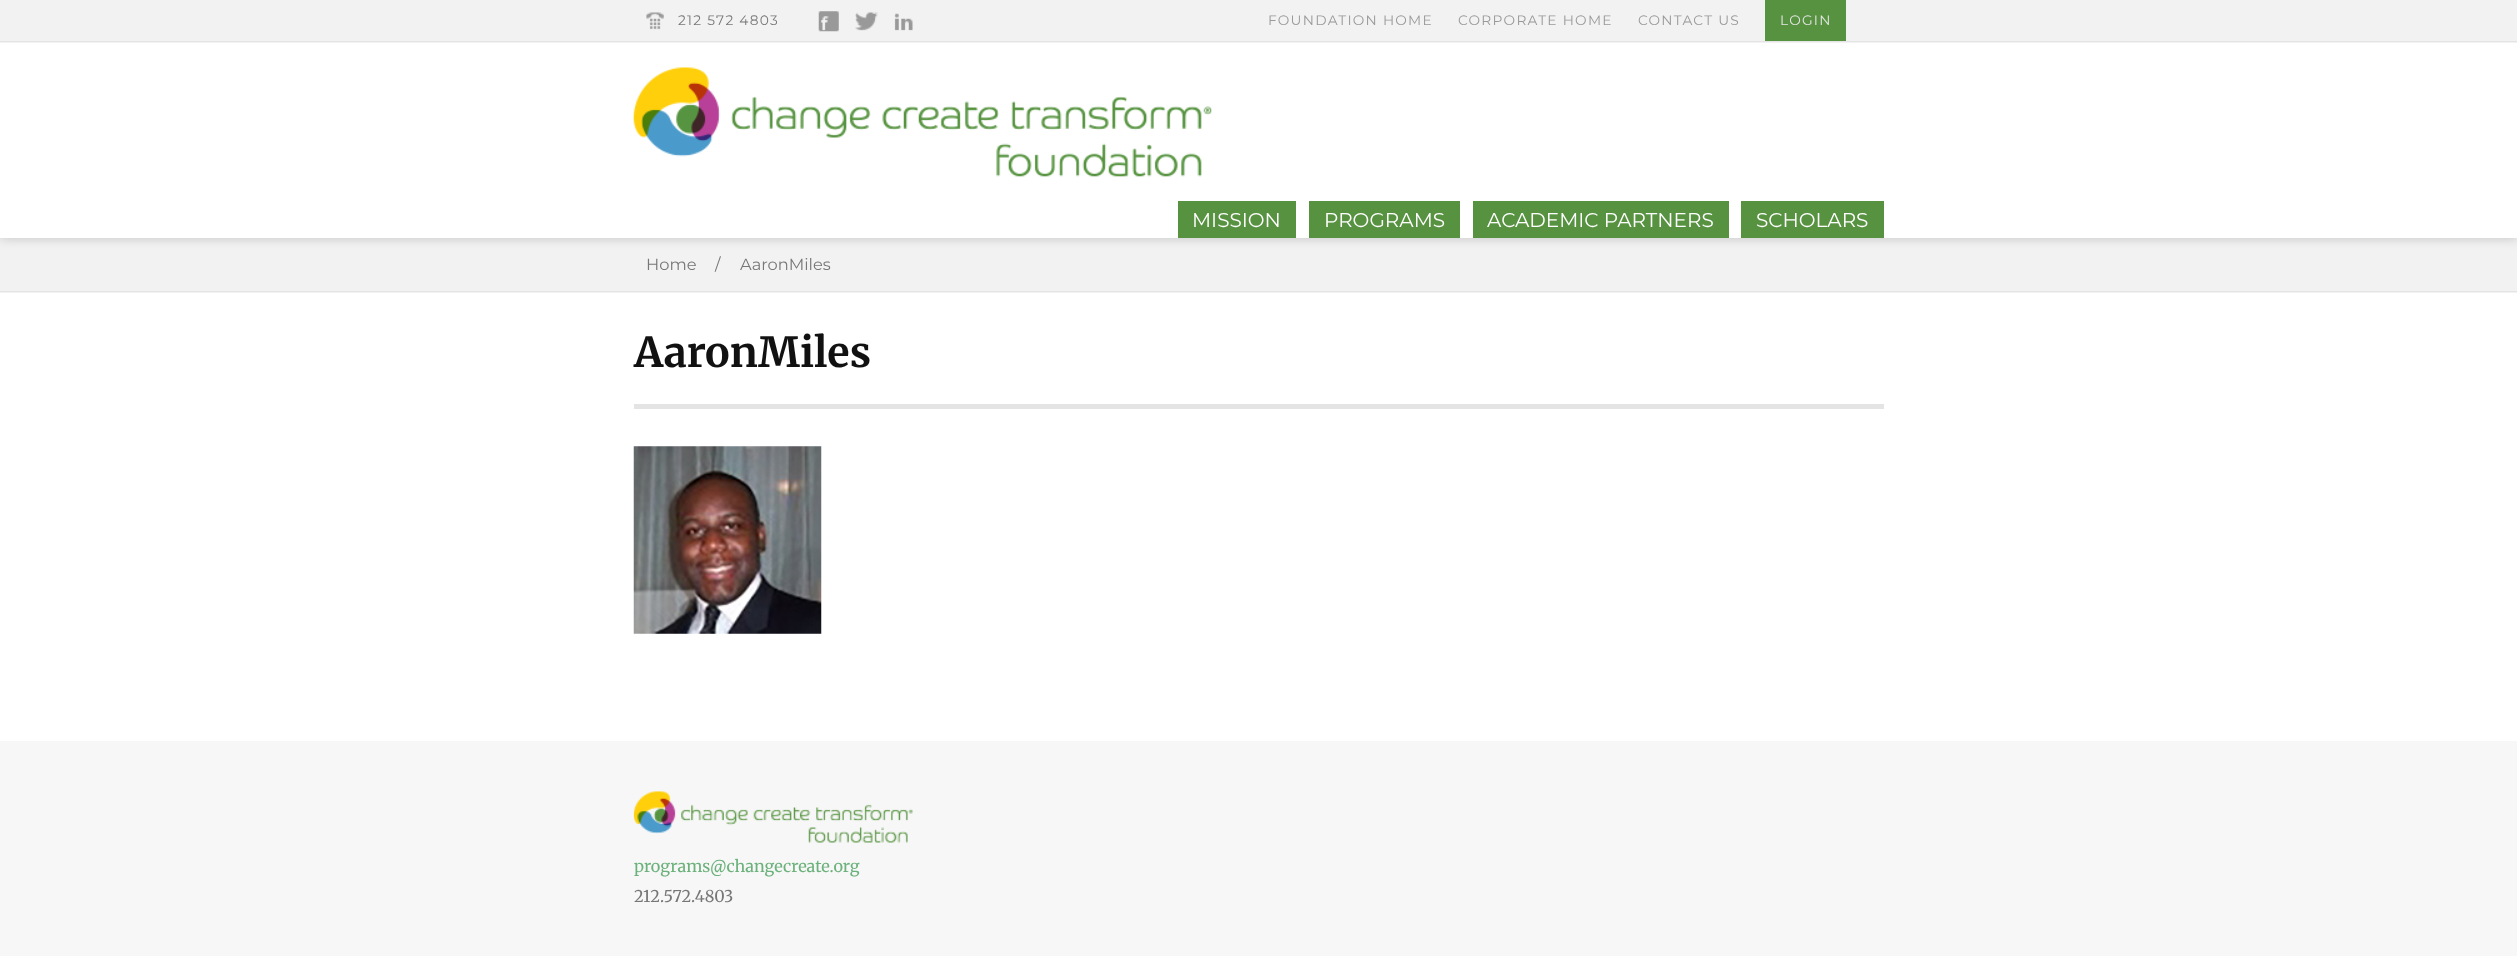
(async () => {
    const canvas = document.querySelector("canvas");
    canvas.width = 2517;
    canvas.height = 956;
    const context = canvas.getContext("2d");
    context.miterLimit = 4;
    context.fontKerning = "normal";
    function write(s, x, y, font, color) {
        context.font = font;
        context.fillStyle = color;
        context.fillText(s, x, y);
    }
    function block(x, y, w, h, color) {
        context.fillStyle = color;
        context.fillRect(x, y, w, h);
    }
    async function photo(src, x, y, w, h) {
        const img = new Image();
        img.src = src;
        await img.decode();
        context.drawImage(img, x, y, w, h);
    }

    block(0, 0, 2517, 956, "rgb(255, 255, 255)");
    block(0, 238, 2517, 55, "rgb(242, 242, 242)");
    context.fillStyle = "rgba(0, 0, 0, 0.2)";
    context.filter = "blur(6px)";
    context.beginPath();
    context.rect(0, 0, 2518, 238);
    context.fill();
    context.filter = "none";
    block(0, 43, 2517, 195, "rgb(255, 255, 255)");
    block(0, 0, 2517, 43, "rgb(242, 242, 242)");
    block(0, 41, 2517, 1, "rgb(228, 228, 228)");
    await photo("media/1.png", 646, 12, 18, 18);
    context.letterSpacing = "1.25px";
    write("212 572 4803", 678, 25, "13.75px Montserrat", "rgb(119, 119, 119)");
    await photo("media/2.png", 818, 11, 21, 21);
    await photo("media/3.png", 855, 12, 23, 19);
    await photo("media/4.png", 894, 13, 19, 18);
    write("FOUNDATION HOME", 1268, 25, "13.75px Montserrat", "rgb(153, 153, 153)");
    write("CORPORATE HOME", 1458, 25, "13.75px Montserrat", "rgb(153, 153, 153)");
    write("CONTACT US", 1638, 25, "13.75px Montserrat", "rgb(153, 153, 153)");
    block(1765, 0, 81, 41, "rgb(87, 146, 65)");
    write("LOGIN", 1780, 25, "13.75px Montserrat", "rgb(229, 229, 229)");
    await photo("media/5.png", 633, 67, 579, 110);
    block(1178, 201, 118, 37, "rgb(87, 146, 65)");
    context.letterSpacing = "0px";
    write("MISSION", 1192, 227, "20px Montserrat", "rgb(255, 255, 255)");
    block(1309, 201, 151, 37, "rgb(87, 146, 65)");
    write("PROGRAMS", 1324, 227, "20px Montserrat", "rgb(255, 255, 255)");
    block(1473, 201, 256, 37, "rgb(87, 146, 65)");
    write("ACADEMIC PARTNERS", 1487, 227, "20px Montserrat", "rgb(255, 255, 255)");
    block(1741, 201, 143, 37, "rgb(87, 146, 65)");
    write("SCHOLARS", 1756, 227, "20px Montserrat", "rgb(255, 255, 255)");
    block(0, 291, 2517, 1, "rgb(228, 228, 228)");
    write("Home", 646, 270, "16.25px Montserrat", "rgb(119, 119, 119)");
    write("/", 715, 270, "16.25px Montserrat", "rgb(119, 119, 119)");
    write("AaronMiles", 740, 270, "16.25px Montserrat", "rgb(119, 119, 119)");
    block(634, 404, 1250, 5, "rgb(228, 228, 228)");
    write("AaronMiles", 634, 367, "bold 41.25px Merriweather", "rgb(17, 17, 17)");
    await photo("media/6.png", 633, 446, 189, 188);
    block(0, 741, 2517, 215, "rgb(247, 247, 247)");
    await photo("media/7.png", 633, 791, 280, 52);
    write("programs@changecreate.org", 634, 872, "16.25px Merriweather", "rgb(107, 177, 123)");
    write("212.572.4803", 634, 902, "16.25px Merriweather", "rgb(119, 119, 119)");
})();
